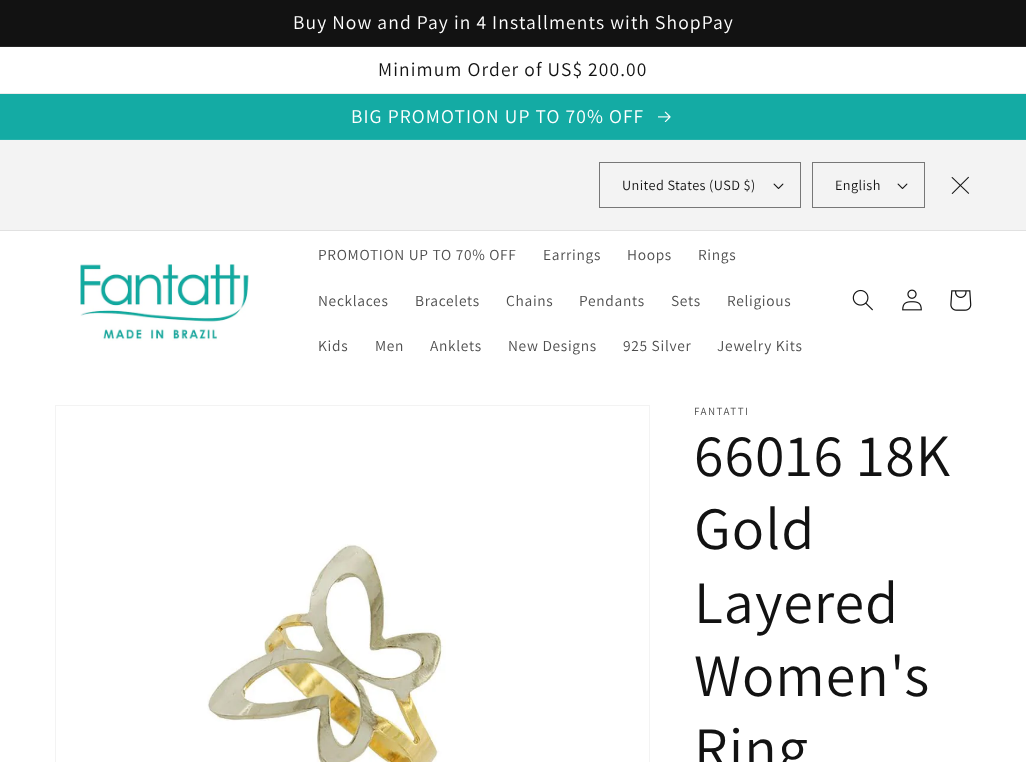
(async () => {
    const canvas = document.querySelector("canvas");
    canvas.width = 1026;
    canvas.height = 762;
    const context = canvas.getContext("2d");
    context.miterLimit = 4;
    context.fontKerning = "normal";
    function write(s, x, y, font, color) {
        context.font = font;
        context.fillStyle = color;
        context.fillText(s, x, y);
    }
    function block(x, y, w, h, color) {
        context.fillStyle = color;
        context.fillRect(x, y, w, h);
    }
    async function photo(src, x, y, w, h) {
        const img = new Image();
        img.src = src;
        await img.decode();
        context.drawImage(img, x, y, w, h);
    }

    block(0, 0, 1026, 762, "rgb(255, 255, 255)");
    block(0, 0, 1026, 46, "rgb(18, 18, 18)");
    block(0, 46, 1026, 1, "rgb(37, 37, 37)");
    context.letterSpacing = "1.1px";
    write("Buy Now and Pay in 4 Installments with ShopPay", 293, 29, "19.5px Assistant", "rgb(255, 255, 255)");
    block(0, 93, 1026, 1, "rgb(236, 236, 236)");
    write("Minimum Order of US$ 200.00", 378, 76, "19.5px Assistant", "rgb(18, 18, 18)");
    block(0, 94, 1026, 45, "rgb(20, 171, 164)");
    block(0, 139, 1026, 1, "rgb(39, 178, 171)");
    write("BIG PROMOTION UP TO 70% OFF", 351, 123, "19.5px Assistant", "rgb(255, 255, 255)");
    await photo("media/1.png", 658, 111, 13, 11);
    block(0, 140, 1026, 90, "rgb(243, 243, 243)");
    block(0, 230, 1026, 1, "rgb(225, 225, 225)");
    await photo("media/2.png", 773, 183, 11, 6);
    context.strokeStyle = "rgb(119, 119, 119)";
    context.strokeRect(599.5, 162.5, 201, 45);
    context.letterSpacing = "0.4px";
    write("United States (USD $)", 622, 190, "14.25px Assistant", "rgb(18, 18, 18)");
    await photo("media/2.png", 897, 183, 11, 6);
    context.strokeRect(812.5, 162.5, 112, 45);
    write("English", 835, 190, "14.25px Assistant", "rgb(18, 18, 18)");
    await photo("media/3.png", 951, 176, 19, 18);
    await photo("media/4.png", 80, 264, 169, 77);
    context.letterSpacing = "0.7px";
    write("PROMOTION UP TO 70% OFF", 318, 260, "15.4px Assistant", "rgb(77, 77, 77)");
    write("Earrings", 543, 260, "15.4px Assistant", "rgb(77, 77, 77)");
    write("Hoops", 627, 260, "15.4px Assistant", "rgb(77, 77, 77)");
    write("Rings", 698, 260, "15.4px Assistant", "rgb(77, 77, 77)");
    write("Necklaces", 318, 306, "15.4px Assistant", "rgb(77, 77, 77)");
    write("Bracelets", 415, 306, "15.4px Assistant", "rgb(77, 77, 77)");
    write("Chains", 506, 306, "15.4px Assistant", "rgb(77, 77, 77)");
    write("Pendants", 579, 306, "15.4px Assistant", "rgb(77, 77, 77)");
    write("Sets", 671, 306, "15.4px Assistant", "rgb(77, 77, 77)");
    write("Religious", 727, 306, "15.4px Assistant", "rgb(77, 77, 77)");
    write("Kids", 318, 351, "15.4px Assistant", "rgb(77, 77, 77)");
    write("Men", 375, 351, "15.4px Assistant", "rgb(77, 77, 77)");
    write("Anklets", 430, 351, "15.4px Assistant", "rgb(77, 77, 77)");
    write("New Designs", 508, 351, "15.4px Assistant", "rgb(77, 77, 77)");
    write("925 Silver", 623, 351, "15.4px Assistant", "rgb(77, 77, 77)");
    write("Jewelry Kits", 717, 351, "15.4px Assistant", "rgb(77, 77, 77)");
    await photo("media/5.png", 852, 289, 21, 22);
    await photo("media/6.png", 902, 289, 20, 22);
    await photo("media/7.png", 950, 290, 22, 21);
    context.strokeStyle = "rgb(243, 243, 243)";
    context.strokeRect(55.5, 405.5, 594, 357);
    await photo("media/8.png", 207, 544, 239, 218);
    context.letterSpacing = "1.5px";
    write("FANTATTI", 694, 415, "11px Assistant", "rgb(77, 77, 77)");
    context.letterSpacing = "1px";
    write("66016 18K", 694, 476, "60px Assistant", "rgb(18, 18, 18)");
    write("Gold", 694, 549, "60px Assistant", "rgb(18, 18, 18)");
    write("Layered", 694, 623, "60px Assistant", "rgb(18, 18, 18)");
    write("Women's", 694, 696, "60px Assistant", "rgb(18, 18, 18)");
    write("Ring", 694, 769, "60px Assistant", "rgb(18, 18, 18)");
})();
